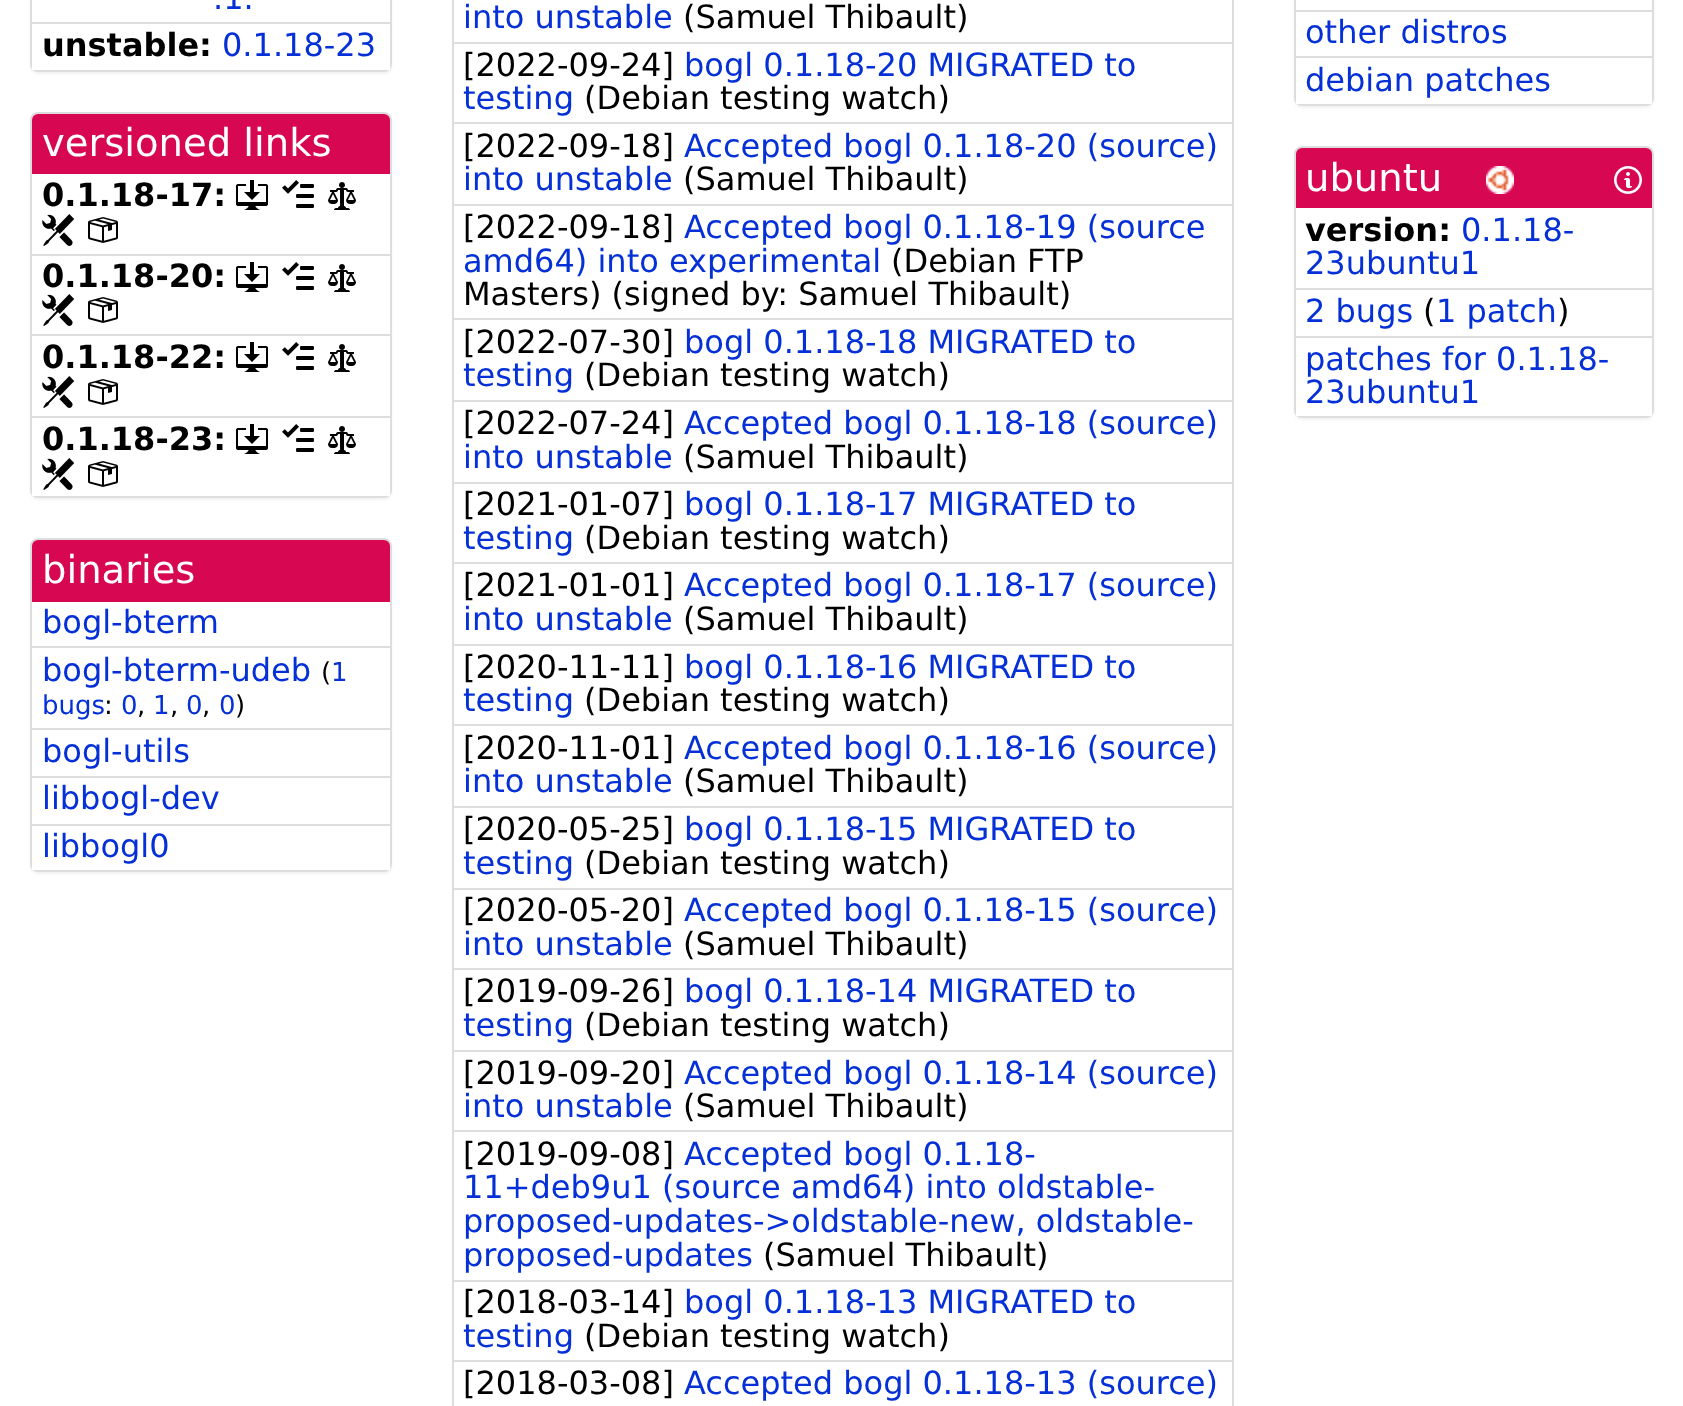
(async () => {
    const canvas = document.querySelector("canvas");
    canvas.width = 1683;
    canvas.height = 1406;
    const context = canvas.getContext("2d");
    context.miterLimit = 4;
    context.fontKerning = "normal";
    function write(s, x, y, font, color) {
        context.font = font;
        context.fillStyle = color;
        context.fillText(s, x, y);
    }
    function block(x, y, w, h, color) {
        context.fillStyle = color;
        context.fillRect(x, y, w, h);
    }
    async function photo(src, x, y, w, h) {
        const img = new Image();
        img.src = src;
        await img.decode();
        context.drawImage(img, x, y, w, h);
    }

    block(0, 0, 1683, 1406, "rgb(255, 255, 255)");
    context.fillStyle = "rgba(0, 0, 0, 0.05)";
    context.filter = "blur(1px)";
    context.beginPath();
    context.roundRect(30, -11, 362, 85, 8);
    context.fill();
    context.filter = "none";
    context.beginPath();
    context.roundRect(31, -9, 360, 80, 7);
    context.strokeStyle = "rgb(221, 221, 221)";
    context.lineWidth = 2;
    context.stroke();
    block(32, 0, 358, 70, "rgb(255, 255, 255)");
    write(".1.", 213, 9, "32px DejaVu Sans", "rgb(5, 48, 215)");
    block(32, 22, 358, 2, "rgb(221, 221, 221)");
    write("unstable:", 42, 56, "bold 32px DejaVu Sans", "rgb(0, 0, 0)");
    write("0.1.18-23", 222, 56, "32px DejaVu Sans", "rgb(5, 48, 215)");
    context.fillStyle = "rgba(0, 0, 0, 0.05)";
    context.filter = "blur(1px)";
    context.beginPath();
    context.roundRect(30, 114, 362, 386, 8);
    context.fill();
    context.filter = "none";
    context.beginPath();
    context.roundRect(31, 113, 360, 384, 7);
    context.stroke();
    context.fillStyle = "rgb(215, 7, 81)";
    context.beginPath();
    context.roundRect(32, 114, 358, 62, [6, 6, 0, 0]);
    context.fill();
    write("versioned links", 42, 156, "38.5px DejaVu Sans", "rgb(255, 255, 255)");
    block(32, 174, 358, 322, "rgb(255, 255, 255)");
    block(32, 254, 358, 2, "rgb(221, 221, 221)");
    write("0.1.18-17:", 42, 206, "bold 32px DejaVu Sans", "rgb(0, 0, 0)");
    await photo("media/1.png", 236, 180, 32, 30);
    await photo("media/2.png", 282, 180, 32, 28);
    await photo("media/3.png", 328, 182, 28, 28);
    await photo("media/4.png", 42, 214, 33, 32);
    await photo("media/5.png", 88, 217, 30, 26);
    block(32, 334, 358, 2, "rgb(221, 221, 221)");
    write("0.1.18-20:", 42, 287, "bold 32px DejaVu Sans", "rgb(0, 0, 0)");
    await photo("media/1.png", 236, 262, 32, 30);
    await photo("media/2.png", 282, 262, 32, 28);
    await photo("media/3.png", 328, 264, 28, 28);
    await photo("media/4.png", 42, 294, 33, 32);
    await photo("media/5.png", 88, 297, 30, 26);
    write("0.1.18-22:", 42, 368, "bold 32px DejaVu Sans", "rgb(0, 0, 0)");
    await photo("media/1.png", 236, 342, 32, 30);
    await photo("media/2.png", 282, 342, 32, 28);
    await photo("media/3.png", 328, 344, 28, 28);
    await photo("media/4.png", 42, 376, 33, 32);
    await photo("media/5.png", 88, 379, 30, 26);
    block(32, 416, 358, 2, "rgb(221, 221, 221)");
    write("0.1.18-23:", 42, 450, "bold 32px DejaVu Sans", "rgb(0, 0, 0)");
    await photo("media/1.png", 236, 424, 32, 30);
    await photo("media/2.png", 282, 424, 32, 28);
    await photo("media/3.png", 328, 426, 28, 28);
    await photo("media/4.png", 42, 458, 33, 32);
    await photo("media/5.png", 88, 461, 30, 26);
    context.fillStyle = "rgba(0, 0, 0, 0.05)";
    context.filter = "blur(1px)";
    context.beginPath();
    context.roundRect(30, 540, 362, 334, 8);
    context.fill();
    context.filter = "none";
    context.beginPath();
    context.roundRect(31, 539, 360, 332, 7);
    context.stroke();
    context.fillStyle = "rgb(215, 7, 81)";
    context.beginPath();
    context.roundRect(32, 540, 358, 64, [6, 6, 0, 0]);
    context.fill();
    write("binaries", 42, 583, "38.5px DejaVu Sans", "rgb(255, 255, 255)");
    block(32, 602, 358, 268, "rgb(255, 255, 255)");
    block(32, 646, 358, 2, "rgb(221, 221, 221)");
    write("bogl-bterm", 42, 633, "32px DejaVu Sans", "rgb(5, 48, 215)");
    block(32, 728, 358, 2, "rgb(221, 221, 221)");
    write("bogl-bterm-udeb", 42, 681, "32px DejaVu Sans", "rgb(5, 48, 215)");
    write("(", 321, 681, "26px DejaVu Sans", "rgb(0, 0, 0)");
    write("1", 331, 681, "26px DejaVu Sans", "rgb(5, 48, 215)");
    write("bugs", 42, 714, "26px DejaVu Sans", "rgb(5, 48, 215)");
    write(":", 104, 714, "26px DejaVu Sans", "rgb(0, 0, 0)");
    write("0", 121, 714, "26px DejaVu Sans", "rgb(5, 48, 215)");
    write(",", 137, 714, "26px DejaVu Sans", "rgb(0, 0, 0)");
    write("1", 153, 714, "26px DejaVu Sans", "rgb(5, 48, 215)");
    write(",", 170, 714, "26px DejaVu Sans", "rgb(0, 0, 0)");
    write("0", 186, 714, "26px DejaVu Sans", "rgb(5, 48, 215)");
    write(",", 202, 714, "26px DejaVu Sans", "rgb(0, 0, 0)");
    write("0", 219, 714, "26px DejaVu Sans", "rgb(5, 48, 215)");
    write(")", 235, 714, "26px DejaVu Sans", "rgb(0, 0, 0)");
    block(32, 776, 358, 2, "rgb(221, 221, 221)");
    write("bogl-utils", 42, 762, "32px DejaVu Sans", "rgb(5, 48, 215)");
    write("libbogl-dev", 42, 809, "32px DejaVu Sans", "rgb(5, 48, 215)");
    block(32, 824, 358, 2, "rgb(221, 221, 221)");
    write("libbogl0", 42, 857, "32px DejaVu Sans", "rgb(5, 48, 215)");
    context.strokeRect(453, -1, 780, 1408);
    block(454, 42, 778, 2, "rgb(221, 221, 221)");
    write("into unstable", 463, 28, "32px DejaVu Sans", "rgb(5, 48, 215)");
    write("(Samuel Thibault)", 683, 28, "32px DejaVu Sans", "rgb(0, 0, 0)");
    block(454, 122, 778, 2, "rgb(221, 221, 221)");
    write("[2022-09-24]", 463, 76, "32px DejaVu Sans", "rgb(0, 0, 0)");
    write("bogl 0.1.18-20 MIGRATED to", 684, 76, "32px DejaVu Sans", "rgb(5, 48, 215)");
    write("testing", 463, 109, "32px DejaVu Sans", "rgb(5, 48, 215)");
    write("(Debian testing watch)", 584, 109, "32px DejaVu Sans", "rgb(0, 0, 0)");
    block(454, 204, 778, 2, "rgb(221, 221, 221)");
    write("[2022-09-18]", 463, 157, "32px DejaVu Sans", "rgb(0, 0, 0)");
    write("Accepted bogl 0.1.18-20 (source)", 684, 157, "32px DejaVu Sans", "rgb(5, 48, 215)");
    write("into unstable", 463, 190, "32px DejaVu Sans", "rgb(5, 48, 215)");
    write("(Samuel Thibault)", 683, 190, "32px DejaVu Sans", "rgb(0, 0, 0)");
    block(454, 318, 778, 2, "rgb(221, 221, 221)");
    write("[2022-09-18]", 463, 238, "32px DejaVu Sans", "rgb(0, 0, 0)");
    write("Accepted bogl 0.1.18-19 (source", 684, 238, "32px DejaVu Sans", "rgb(5, 48, 215)");
    write("amd64) into experimental", 463, 272, "32px DejaVu Sans", "rgb(5, 48, 215)");
    write("(Debian FTP", 891, 272, "32px DejaVu Sans", "rgb(0, 0, 0)");
    write("Masters) (signed by: Samuel Thibault)", 463, 305, "32px DejaVu Sans", "rgb(0, 0, 0)");
    block(454, 400, 778, 2, "rgb(221, 221, 221)");
    write("[2022-07-30]", 463, 353, "32px DejaVu Sans", "rgb(0, 0, 0)");
    write("bogl 0.1.18-18 MIGRATED to", 684, 353, "32px DejaVu Sans", "rgb(5, 48, 215)");
    write("testing", 463, 386, "32px DejaVu Sans", "rgb(5, 48, 215)");
    write("(Debian testing watch)", 584, 386, "32px DejaVu Sans", "rgb(0, 0, 0)");
    block(454, 482, 778, 2, "rgb(221, 221, 221)");
    write("[2022-07-24]", 463, 434, "32px DejaVu Sans", "rgb(0, 0, 0)");
    write("Accepted bogl 0.1.18-18 (source)", 684, 434, "32px DejaVu Sans", "rgb(5, 48, 215)");
    write("into unstable", 463, 468, "32px DejaVu Sans", "rgb(5, 48, 215)");
    write("(Samuel Thibault)", 683, 468, "32px DejaVu Sans", "rgb(0, 0, 0)");
    block(454, 562, 778, 2, "rgb(221, 221, 221)");
    write("[2021-01-07]", 463, 515, "32px DejaVu Sans", "rgb(0, 0, 0)");
    write("bogl 0.1.18-17 MIGRATED to", 684, 515, "32px DejaVu Sans", "rgb(5, 48, 215)");
    write("testing", 463, 549, "32px DejaVu Sans", "rgb(5, 48, 215)");
    write("(Debian testing watch)", 584, 549, "32px DejaVu Sans", "rgb(0, 0, 0)");
    block(454, 644, 778, 2, "rgb(221, 221, 221)");
    write("[2021-01-01]", 463, 596, "32px DejaVu Sans", "rgb(0, 0, 0)");
    write("Accepted bogl 0.1.18-17 (source)", 684, 596, "32px DejaVu Sans", "rgb(5, 48, 215)");
    write("into unstable", 463, 630, "32px DejaVu Sans", "rgb(5, 48, 215)");
    write("(Samuel Thibault)", 683, 630, "32px DejaVu Sans", "rgb(0, 0, 0)");
    block(454, 724, 778, 2, "rgb(221, 221, 221)");
    write("[2020-11-11]", 463, 678, "32px DejaVu Sans", "rgb(0, 0, 0)");
    write("bogl 0.1.18-16 MIGRATED to", 684, 678, "32px DejaVu Sans", "rgb(5, 48, 215)");
    write("testing", 463, 711, "32px DejaVu Sans", "rgb(5, 48, 215)");
    write("(Debian testing watch)", 584, 711, "32px DejaVu Sans", "rgb(0, 0, 0)");
    block(454, 806, 778, 2, "rgb(221, 221, 221)");
    write("[2020-11-01]", 463, 759, "32px DejaVu Sans", "rgb(0, 0, 0)");
    write("Accepted bogl 0.1.18-16 (source)", 684, 759, "32px DejaVu Sans", "rgb(5, 48, 215)");
    write("into unstable", 463, 792, "32px DejaVu Sans", "rgb(5, 48, 215)");
    write("(Samuel Thibault)", 683, 792, "32px DejaVu Sans", "rgb(0, 0, 0)");
    block(454, 888, 778, 2, "rgb(221, 221, 221)");
    write("[2020-05-25]", 463, 840, "32px DejaVu Sans", "rgb(0, 0, 0)");
    write("bogl 0.1.18-15 MIGRATED to", 684, 840, "32px DejaVu Sans", "rgb(5, 48, 215)");
    write("testing", 463, 874, "32px DejaVu Sans", "rgb(5, 48, 215)");
    write("(Debian testing watch)", 584, 874, "32px DejaVu Sans", "rgb(0, 0, 0)");
    block(454, 968, 778, 2, "rgb(221, 221, 221)");
    write("[2020-05-20]", 463, 921, "32px DejaVu Sans", "rgb(0, 0, 0)");
    write("Accepted bogl 0.1.18-15 (source)", 684, 921, "32px DejaVu Sans", "rgb(5, 48, 215)");
    write("into unstable", 463, 955, "32px DejaVu Sans", "rgb(5, 48, 215)");
    write("(Samuel Thibault)", 683, 955, "32px DejaVu Sans", "rgb(0, 0, 0)");
    block(454, 1050, 778, 2, "rgb(221, 221, 221)");
    write("[2019-09-26]", 463, 1002, "32px DejaVu Sans", "rgb(0, 0, 0)");
    write("bogl 0.1.18-14 MIGRATED to", 684, 1002, "32px DejaVu Sans", "rgb(5, 48, 215)");
    write("testing", 463, 1036, "32px DejaVu Sans", "rgb(5, 48, 215)");
    write("(Debian testing watch)", 584, 1036, "32px DejaVu Sans", "rgb(0, 0, 0)");
    block(454, 1130, 778, 2, "rgb(221, 221, 221)");
    write("[2019-09-20]", 463, 1084, "32px DejaVu Sans", "rgb(0, 0, 0)");
    write("Accepted bogl 0.1.18-14 (source)", 684, 1084, "32px DejaVu Sans", "rgb(5, 48, 215)");
    write("into unstable", 463, 1117, "32px DejaVu Sans", "rgb(5, 48, 215)");
    write("(Samuel Thibault)", 683, 1117, "32px DejaVu Sans", "rgb(0, 0, 0)");
    block(454, 1280, 778, 2, "rgb(221, 221, 221)");
    write("[2019-09-08]", 463, 1165, "32px DejaVu Sans", "rgb(0, 0, 0)");
    write("Accepted bogl 0.1.18-", 684, 1165, "32px DejaVu Sans", "rgb(5, 48, 215)");
    write("11+deb9u1 (source amd64) into oldstable-", 463, 1198, "32px DejaVu Sans", "rgb(5, 48, 215)");
    write("proposed-updates->oldstable-new, oldstable-", 463, 1232, "32px DejaVu Sans", "rgb(5, 48, 215)");
    write("proposed-updates", 463, 1266, "32px DejaVu Sans", "rgb(5, 48, 215)");
    write("(Samuel Thibault)", 763, 1266, "32px DejaVu Sans", "rgb(0, 0, 0)");
    block(454, 1360, 778, 2, "rgb(221, 221, 221)");
    write("[2018-03-14]", 463, 1313, "32px DejaVu Sans", "rgb(0, 0, 0)");
    write("bogl 0.1.18-13 MIGRATED to", 684, 1313, "32px DejaVu Sans", "rgb(5, 48, 215)");
    write("testing", 463, 1347, "32px DejaVu Sans", "rgb(5, 48, 215)");
    write("(Debian testing watch)", 584, 1347, "32px DejaVu Sans", "rgb(0, 0, 0)");
    write("[2018-03-08]", 463, 1394, "32px DejaVu Sans", "rgb(0, 0, 0)");
    write("Accepted bogl 0.1.18-13 (source)", 684, 1394, "32px DejaVu Sans", "rgb(5, 48, 215)");
    context.fillStyle = "rgba(0, 0, 0, 0.05)";
    context.filter = "blur(1px)";
    context.beginPath();
    context.roundRect(1294, -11, 360, 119, 8);
    context.fill();
    context.filter = "none";
    context.beginPath();
    context.roundRect(1295, -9, 358, 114, 7);
    context.stroke();
    block(1296, 0, 356, 104, "rgb(255, 255, 255)");
    block(1296, 10, 356, 2, "rgb(221, 221, 221)");
    write("other distros", 1305, 43, "32px DejaVu Sans", "rgb(5, 48, 215)");
    block(1296, 56, 356, 2, "rgb(221, 221, 221)");
    write("debian patches", 1305, 91, "32px DejaVu Sans", "rgb(5, 48, 215)");
    context.fillStyle = "rgba(0, 0, 0, 0.05)";
    context.filter = "blur(1px)";
    context.beginPath();
    context.roundRect(1294, 148, 360, 272, 8);
    context.fill();
    context.filter = "none";
    context.beginPath();
    context.roundRect(1295, 147, 358, 270, 7);
    context.stroke();
    context.fillStyle = "rgb(215, 7, 81)";
    context.beginPath();
    context.roundRect(1296, 148, 356, 62, [6, 6, 0, 0]);
    context.fill();
    write("ubuntu", 1305, 191, "38.5px DejaVu Sans", "rgb(255, 255, 255)");
    await photo("media/6.png", 1486, 166, 28, 28);
    await photo("media/7.png", 1614, 166, 28, 28);
    block(1296, 208, 356, 208, "rgb(255, 255, 255)");
    block(1296, 288, 356, 2, "rgb(221, 221, 221)");
    write("version:", 1305, 241, "bold 32px DejaVu Sans", "rgb(0, 0, 0)");
    write("0.1.18-", 1461, 241, "32px DejaVu Sans", "rgb(5, 48, 215)");
    write("23ubuntu1", 1305, 274, "32px DejaVu Sans", "rgb(5, 48, 215)");
    write("2 bugs", 1305, 322, "32px DejaVu Sans", "rgb(5, 48, 215)");
    write("(", 1423, 322, "32px DejaVu Sans", "rgb(0, 0, 0)");
    write("1 patch", 1436, 322, "32px DejaVu Sans", "rgb(5, 48, 215)");
    write(")", 1557, 322, "32px DejaVu Sans", "rgb(0, 0, 0)");
    block(1296, 336, 356, 2, "rgb(221, 221, 221)");
    write("patches for 0.1.18-", 1305, 370, "32px DejaVu Sans", "rgb(5, 48, 215)");
    write("23ubuntu1", 1305, 403, "32px DejaVu Sans", "rgb(5, 48, 215)");
})();
